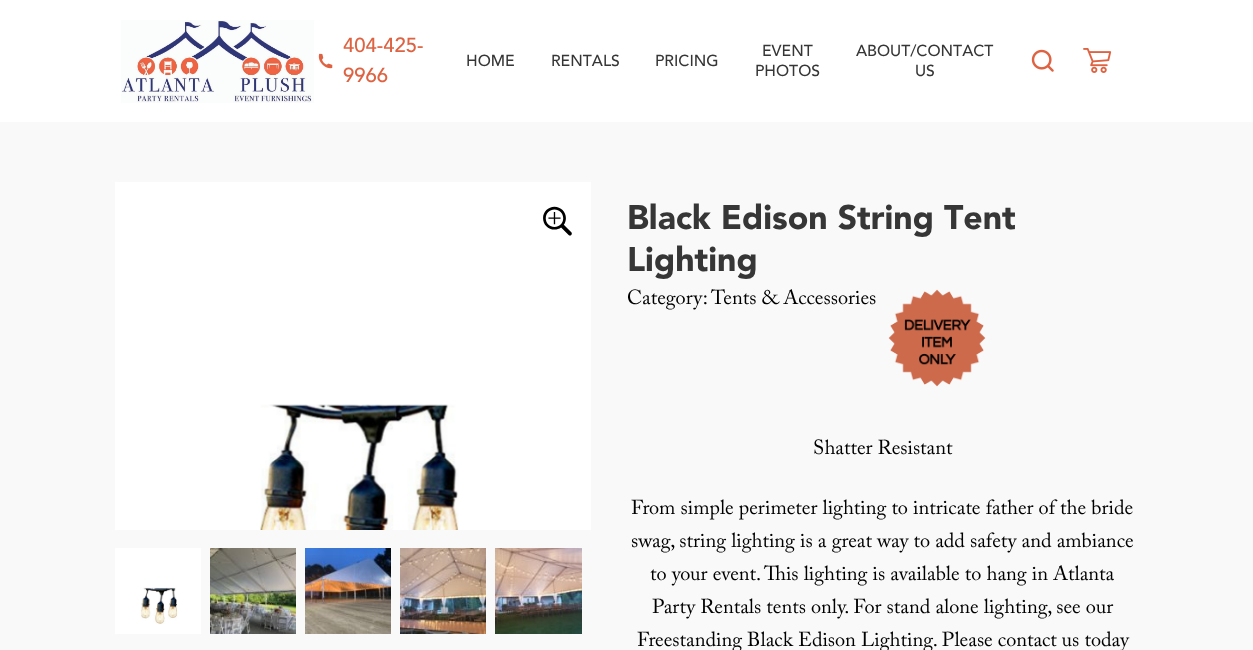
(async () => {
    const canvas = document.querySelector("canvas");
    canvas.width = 1253;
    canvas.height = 650;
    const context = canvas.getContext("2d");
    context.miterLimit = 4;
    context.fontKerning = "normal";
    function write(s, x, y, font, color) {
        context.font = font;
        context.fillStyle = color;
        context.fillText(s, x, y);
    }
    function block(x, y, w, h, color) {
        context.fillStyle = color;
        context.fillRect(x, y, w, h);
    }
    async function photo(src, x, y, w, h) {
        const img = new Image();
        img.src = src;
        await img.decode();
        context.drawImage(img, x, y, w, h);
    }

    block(0, 0, 1253, 650, "rgb(249, 249, 249)");
    block(0, 0, 1253, 122, "rgb(255, 255, 255)");
    await photo("media/1.png", 121, 20, 193, 83);
    await photo("media/2.png", 318, 53, 15, 16);
    write("404-425-", 343, 52, "500 20.25px Avenir", "rgb(222, 99, 66)");
    write("9966", 343, 82, "500 20.25px Avenir", "rgb(222, 99, 66)");
    write("HOME", 466, 66, "500 15.75px Avenir", "rgb(54, 54, 54)");
    write("RENTALS", 551, 66, "500 15.75px Avenir", "rgb(54, 54, 54)");
    write("PRICING", 655, 66, "500 15.75px Avenir", "rgb(54, 54, 54)");
    write("EVENT", 762, 56, "500 15.75px Avenir", "rgb(54, 54, 54)");
    write("PHOTOS", 755, 76, "500 15.75px Avenir", "rgb(54, 54, 54)");
    write("ABOUT/CONTACT", 856, 56, "500 15.75px Avenir", "rgb(54, 54, 54)");
    write("US", 915, 76, "500 15.75px Avenir", "rgb(54, 54, 54)");
    await photo("media/3.png", 1031, 49, 23, 23);
    await photo("media/4.png", 1083, 48, 29, 25);
    await photo("media/5.png", 115, 182, 476, 348);
    await photo("media/6.png", 543, 206, 29, 30);
    await photo("media/7.png", 115, 548, 86, 86);
    await photo("media/8.png", 210, 548, 86, 86);
    await photo("media/9.png", 305, 548, 86, 86);
    await photo("media/10.png", 400, 548, 86, 86);
    await photo("media/11.png", 495, 548, 87, 86);
    write("Black Edison String Tent", 627, 229, "900 33.75px Avenir", "rgb(54, 54, 54)");
    write("Lighting", 627, 271, "900 33.75px Avenir", "rgb(54, 54, 54)");
    write("Category:", 627, 304, "20.25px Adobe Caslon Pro", "rgb(0, 0, 0)");
    write("Tents & Accessories", 711, 304, "20.25px Adobe Caslon Pro", "rgb(0, 0, 0)");
    await photo("media/12.png", 888, 289, 98, 98);
    write("Shatter Resistant", 813, 454, "20.25px Adobe Caslon Pro", "rgb(0, 0, 0)");
    write("From simple perimeter lighting to intricate father of the bride", 631, 514, "20.25px Adobe Caslon Pro", "rgb(0, 0, 0)");
    write("swag, string lighting is a great way to add safety and ambiance", 631, 547, "20.25px Adobe Caslon Pro", "rgb(0, 0, 0)");
    write("to your event. This lighting is available to hang in Atlanta", 650, 580, "20.25px Adobe Caslon Pro", "rgb(0, 0, 0)");
    write("Party Rentals tents only. For stand alone lighting, see our", 652, 613, "20.25px Adobe Caslon Pro", "rgb(0, 0, 0)");
    write("Freestanding Black Edison Lighting. Please contact us today", 637, 646, "20.25px Adobe Caslon Pro", "rgb(0, 0, 0)");
})();
